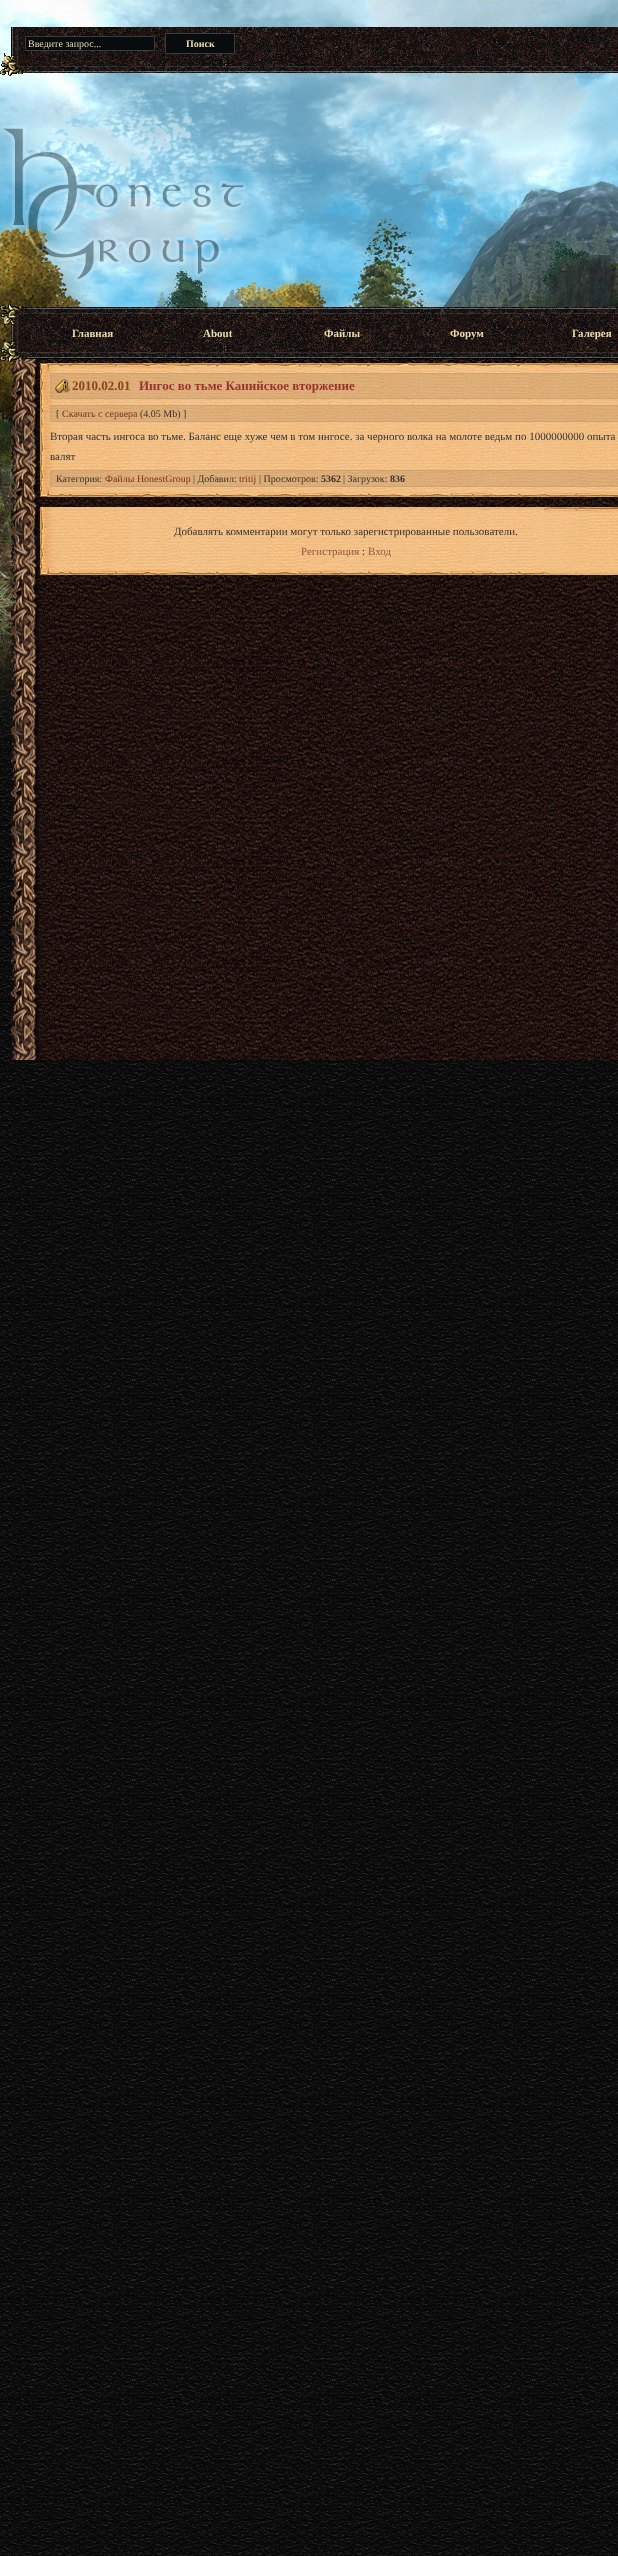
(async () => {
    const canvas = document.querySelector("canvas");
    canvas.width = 618;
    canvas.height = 2556;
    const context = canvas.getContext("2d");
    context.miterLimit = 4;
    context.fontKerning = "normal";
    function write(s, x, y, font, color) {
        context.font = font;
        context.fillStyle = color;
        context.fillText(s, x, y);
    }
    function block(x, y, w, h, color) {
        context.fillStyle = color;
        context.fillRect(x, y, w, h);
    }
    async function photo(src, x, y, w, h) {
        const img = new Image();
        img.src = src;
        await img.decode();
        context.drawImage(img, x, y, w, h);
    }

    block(0, 0, 618, 2556, "rgb(255, 255, 255)");
    await photo("media/1.png", 0, 802, 618, 1754);
    await photo("media/2.png", 0, 0, 618, 802);
    await photo("media/3.png", 0, 27, 618, 49);
    context.fillStyle = "rgb(9, 12, 14)";
    context.beginPath();
    context.rect(25.5, 36.5, 129, 14);
    context.fill();
    context.strokeStyle = "rgb(57, 60, 62)";
    context.stroke();
    write("Введите запрос...", 28, 47, "10px Liberation Serif", "rgb(233, 219, 170)");
    context.fillStyle = "rgb(9, 12, 14)";
    context.beginPath();
    context.rect(165.5, 33.5, 69, 20);
    context.fill();
    context.stroke();
    write("Поиск", 186, 47, "bold 10px Liberation Serif", "rgb(233, 219, 170)");
    await photo("media/4.png", 0, 125, 247, 157);
    await photo("media/5.png", 0, 304, 618, 59);
    write("Главная", 72, 337, "bold 11px Liberation Serif", "rgb(233, 219, 170)");
    write("About", 203, 337, "bold 11px Liberation Serif", "rgb(233, 219, 170)");
    write("Файлы", 324, 337, "bold 11px Liberation Serif", "rgb(233, 219, 170)");
    write("Форум", 450, 337, "bold 11px Liberation Serif", "rgb(233, 219, 170)");
    write("Галерея", 572, 337, "bold 11px Liberation Serif", "rgb(233, 219, 170)");
    await photo("media/6.png", 11, 363, 607, 697);
    await photo("media/7.png", 40, 374, 549, 116);
    await photo("media/8.png", 40, 448, 65, 30);
    await photo("media/9.png", 552, 374, 66, 116);
    await photo("media/10.png", 338, 363, 280, 85);
    await photo("media/11.png", 40, 363, 298, 85);
    await photo("media/12.png", 40, 412, 578, 85);
    await photo("media/13.png", 40, 412, 298, 85);
    await photo("media/14.png", 544, 412, 74, 85);
    await photo("media/15.png", 544, 363, 74, 85);
    context.fillStyle = "rgba(140, 100, 65, 0.2)";
    context.beginPath();
    context.rect(50.5, 373.5, 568, 25);
    context.fill();
    context.strokeStyle = "rgb(204, 161, 118)";
    context.stroke();
    await photo("media/16.png", 55, 379, 15, 14);
    write("2010.02.01", 72, 390, "bold 13px Liberation Serif", "rgb(136, 68, 34)");
    write("Ингос во тьме Канийское вторжение", 139, 390, "bold 13px Liberation Serif", "rgb(153, 51, 51)");
    context.fillStyle = "rgba(140, 100, 65, 0.2)";
    context.beginPath();
    context.rect(50.5, 405.5, 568, 16);
    context.fill();
    context.stroke();
    write("[", 56, 417, "10px Liberation Serif", "rgb(51, 51, 51)");
    write("Скачать с сервера", 62, 417, "10px Liberation Serif", "rgb(119, 51, 34)");
    write("(4.05 Mb) ]", 140, 417, "10px Liberation Serif", "rgb(51, 51, 51)");
    write("Вторая часть ингоса во тьме. Баланс еще хуже чем в том ингосе. за черного волка на молоте ведьм по 1000000000 опыта", 50, 440, "11px Liberation Serif", "rgb(51, 51, 51)");
    write("валят", 50, 460, "11px Liberation Serif", "rgb(51, 51, 51)");
    context.fillStyle = "rgba(140, 100, 65, 0.2)";
    context.beginPath();
    context.rect(50.5, 470.5, 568, 16);
    context.fill();
    context.stroke();
    write("Категория:", 56, 482, "10px Liberation Serif", "rgb(51, 51, 51)");
    write("Файлы HonestGroup", 105, 482, "10px Liberation Serif", "rgb(119, 51, 34)");
    write("| Добавил:", 193, 482, "10px Liberation Serif", "rgb(51, 51, 51)");
    write("tritij", 239, 482, "10px Liberation Serif", "rgb(119, 51, 34)");
    write("| Просмотров:", 259, 482, "10px Liberation Serif", "rgb(51, 51, 51)");
    write("5362", 321, 482, "bold 10px Liberation Serif", "rgb(51, 51, 51)");
    write("| Загрузок:", 343, 482, "10px Liberation Serif", "rgb(51, 51, 51)");
    write("836", 390, 482, "bold 10px Liberation Serif", "rgb(51, 51, 51)");
    await photo("media/17.png", 338, 517, 251, 51);
    await photo("media/18.png", 552, 517, 66, 51);
    await photo("media/19.png", 338, 507, 280, 61);
    await photo("media/20.png", 40, 507, 298, 61);
    await photo("media/21.png", 40, 507, 578, 68);
    await photo("media/22.png", 40, 507, 298, 68);
    await photo("media/23.png", 544, 507, 74, 68);
    await photo("media/24.png", 544, 507, 74, 68);
    write("Добавлять комментарии могут только зарегистрированные пользователи.", 174, 535, "11px Liberation Serif", "rgb(51, 51, 51)");
    write("Регистрация", 301, 555, "11px Liberation Serif", "rgb(153, 85, 68)");
    write(":", 362, 555, "11px Liberation Serif", "rgb(51, 51, 51)");
    write("Вход", 368, 555, "11px Liberation Serif", "rgb(153, 85, 68)");
})();
